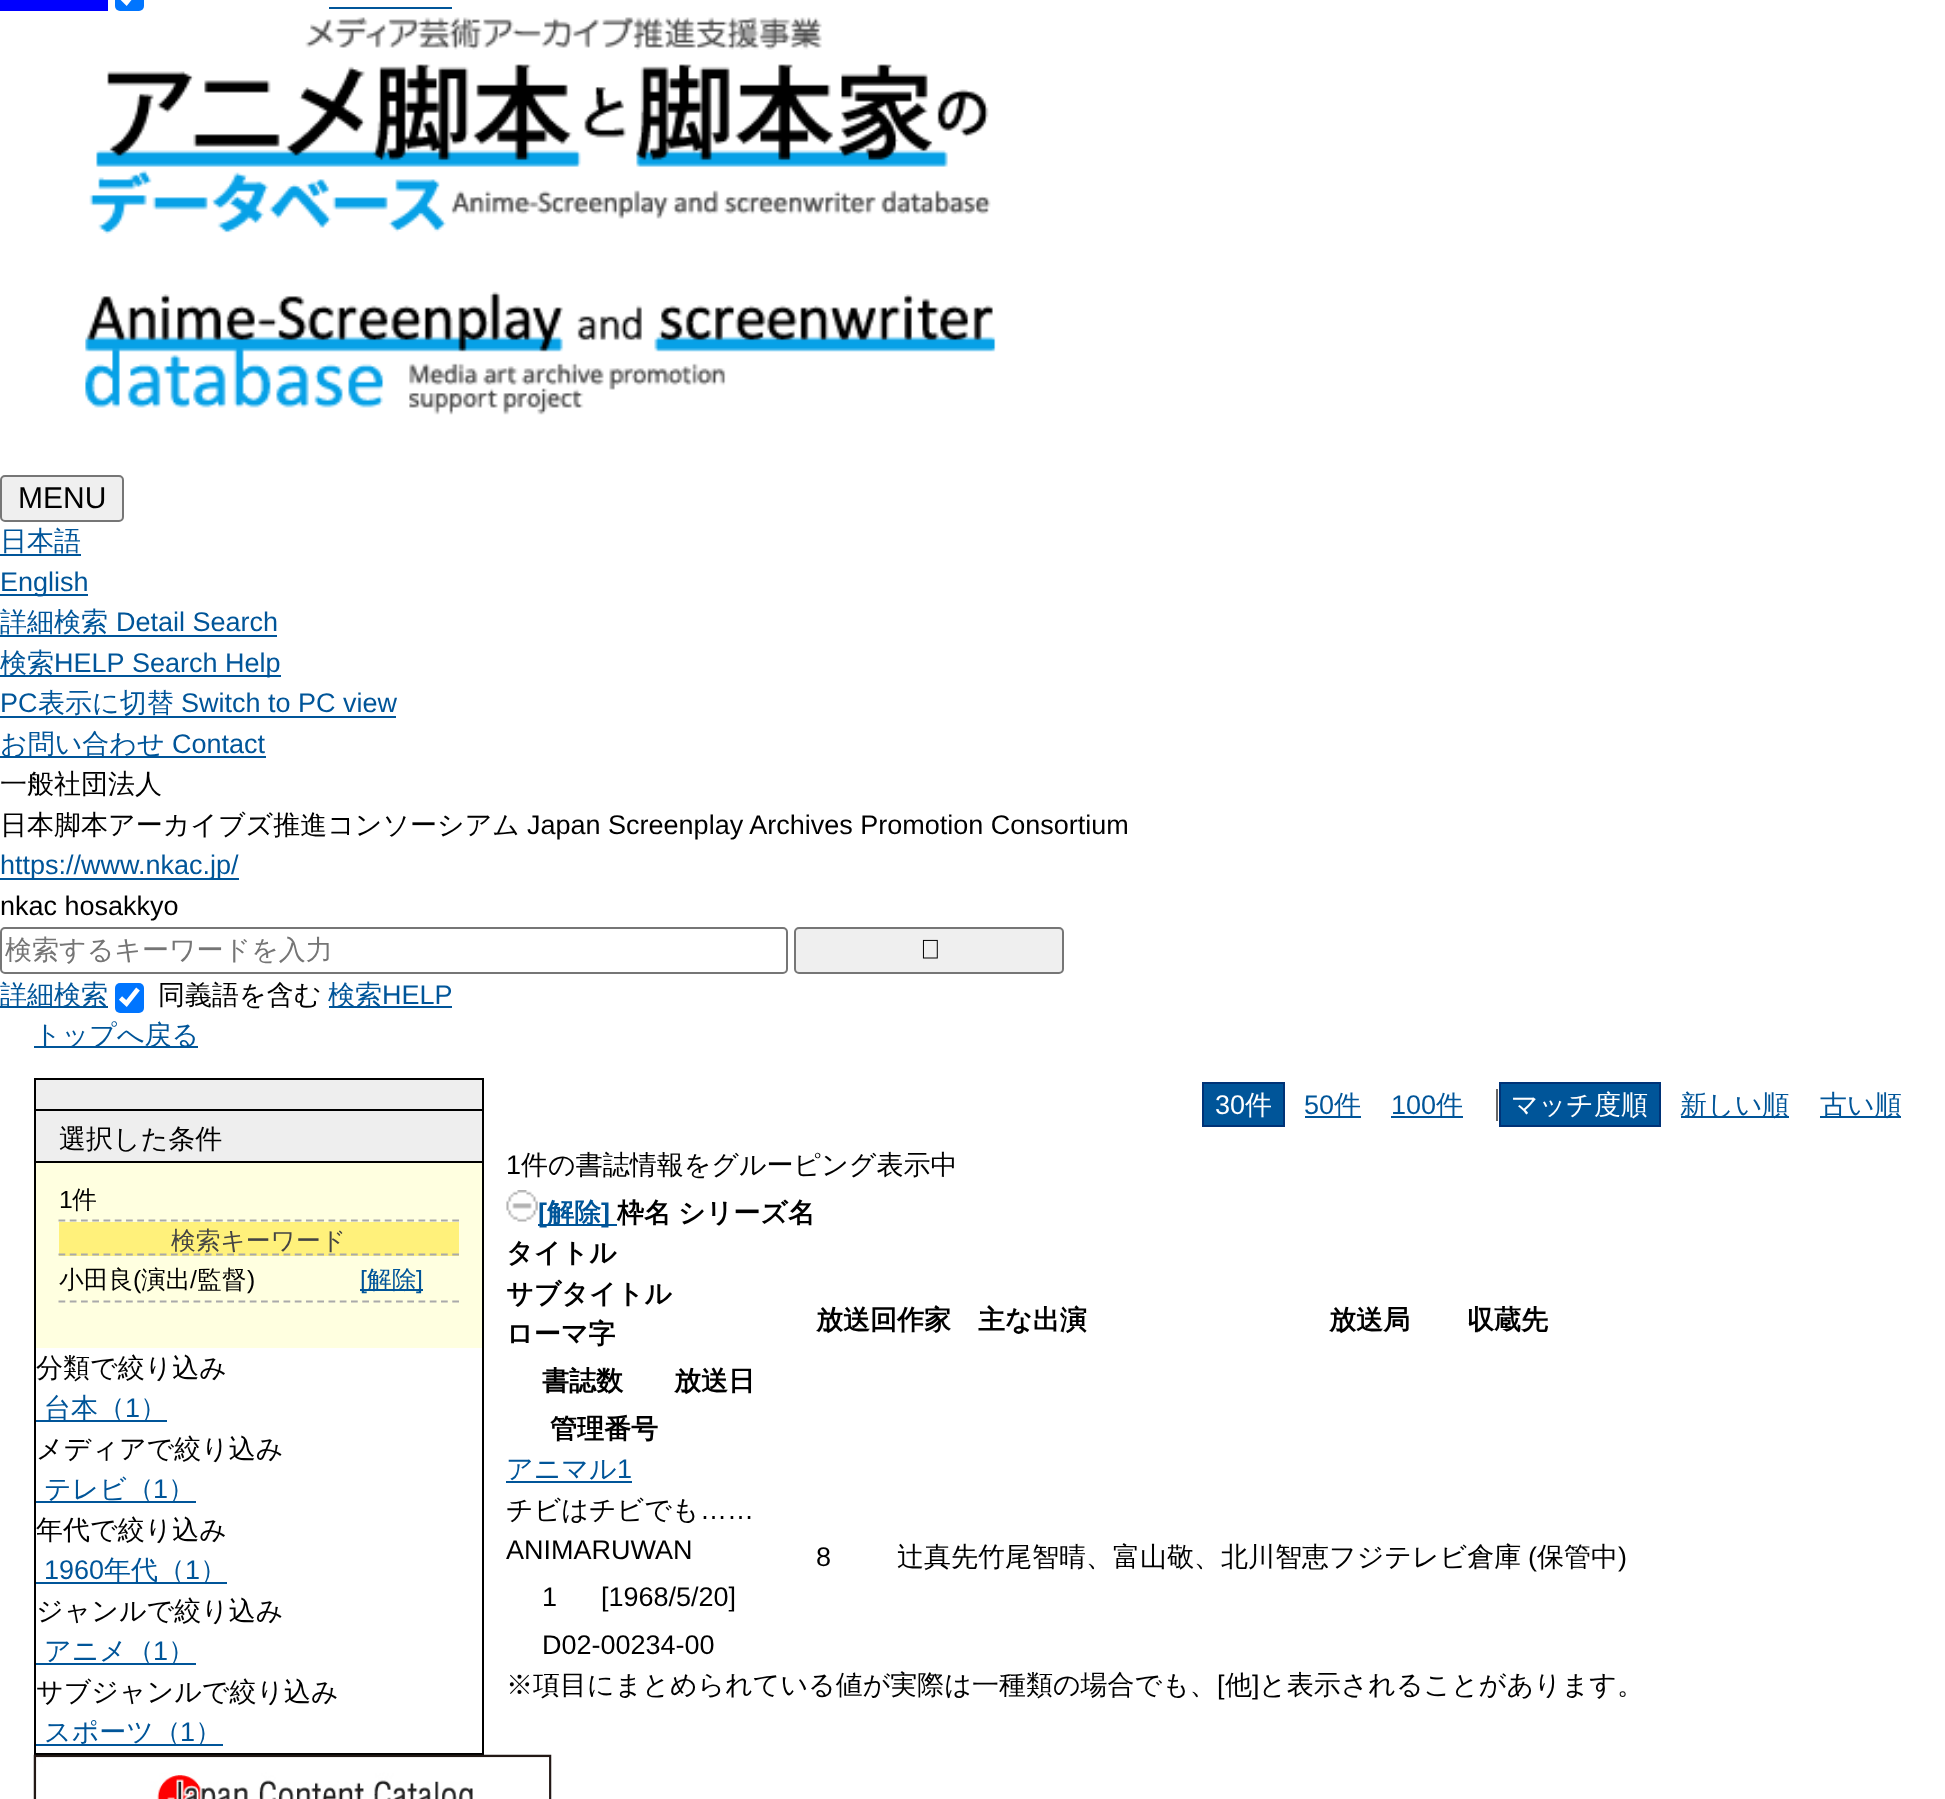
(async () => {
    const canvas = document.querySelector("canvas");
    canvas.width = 1945;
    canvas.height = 1799;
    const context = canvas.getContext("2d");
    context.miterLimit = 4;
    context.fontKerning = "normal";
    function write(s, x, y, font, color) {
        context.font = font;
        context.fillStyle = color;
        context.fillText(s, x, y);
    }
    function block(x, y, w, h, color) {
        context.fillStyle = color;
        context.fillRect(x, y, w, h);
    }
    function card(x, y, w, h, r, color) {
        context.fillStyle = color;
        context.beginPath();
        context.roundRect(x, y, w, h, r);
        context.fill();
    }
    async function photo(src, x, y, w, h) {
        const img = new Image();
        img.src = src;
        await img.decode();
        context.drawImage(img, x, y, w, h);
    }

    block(0, 0, 1945, 1799, "rgb(255, 255, 255)");
    block(0, 0, 108, 11, "rgb(0, 0, 255)");
    card(115, -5, 29, 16, 5, "rgb(0, 117, 255)");
    context.beginPath();
    context.moveTo(120.5, -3.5);
    context.lineTo(126.5, 2.5);
    context.lineTo(138, -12);
    context.strokeStyle = "rgb(255, 255, 255)";
    context.lineWidth = 4.7;
    context.stroke();
    block(329, 7, 123, 2, "rgb(0, 85, 153)");
    await photo("media/1.png", 89, 17, 902, 217);
    await photo("media/2.png", 85, 291, 911, 124);
    context.fillStyle = "rgb(239, 239, 239)";
    context.beginPath();
    context.roundRect(1, 476, 122, 45, 4);
    context.fill();
    context.strokeStyle = "rgb(118, 118, 118)";
    context.lineWidth = 2;
    context.stroke();
    write("MENU", 18, 508, "30px Liberation Sans", "rgb(0, 0, 0)");
    write("日本語", 0, 550, "500 27px WenQuanYi Zen Hei", "rgb(0, 85, 153)");
    block(0, 554, 81, 2, "rgb(0, 85, 153)");
    block(0, 594, 88, 2, "rgb(0, 85, 153)");
    write("English", 0, 591, "27px Liberation Sans", "rgb(0, 85, 153)");
    write("詳細検索", 0, 631, "500 27px WenQuanYi Zen Hei", "rgb(0, 85, 153)");
    block(0, 635, 277, 2, "rgb(0, 85, 153)");
    write("Detail Search", 116, 631, "27px Liberation Sans", "rgb(0, 85, 153)");
    block(0, 675, 281, 2, "rgb(0, 85, 153)");
    write("検索", 0, 672, "500 27px WenQuanYi Zen Hei", "rgb(0, 85, 153)");
    write("HELP", 54, 672, "27px Liberation Sans", "rgb(0, 85, 153)");
    write("Search Help", 132, 672, "27px Liberation Sans", "rgb(0, 85, 153)");
    write("PC", 0, 712, "27px Liberation Sans", "rgb(0, 85, 153)");
    block(0, 716, 396, 2, "rgb(0, 85, 153)");
    write("表示に切替", 38, 712, "500 27px WenQuanYi Zen Hei", "rgb(0, 85, 153)");
    write("Switch to PC view", 181, 712, "27px Liberation Sans", "rgb(0, 85, 153)");
    block(0, 756, 266, 2, "rgb(0, 85, 153)");
    write("お問い合わせ", 0, 753, "500 27px WenQuanYi Zen Hei", "rgb(0, 85, 153)");
    write("Contact", 172, 753, "27px Liberation Sans", "rgb(0, 85, 153)");
    write("一般社団法人", 0, 793, "500 27px WenQuanYi Zen Hei", "rgb(0, 0, 0)");
    write("日本脚本アーカイブズ推進コンソーシアム", 0, 834, "500 27px WenQuanYi Zen Hei", "rgb(0, 0, 0)");
    write("Japan Screenplay Archives Promotion Consortium", 527, 834, "27px Liberation Sans", "rgb(0, 0, 0)");
    block(0, 878, 239, 2, "rgb(0, 85, 153)");
    write("https://www.nkac.jp/", 0, 874, "27px Liberation Sans", "rgb(0, 85, 153)");
    write("nkac hosakkyo", 0, 915, "27px Liberation Sans", "rgb(0, 0, 0)");
    context.beginPath();
    context.roundRect(1, 928, 786, 45, 4);
    context.stroke();
    write("検索するキーワードを入力", 5, 959, "500 27px WenQuanYi Zen Hei", "rgb(117, 117, 117)");
    context.fillStyle = "rgb(239, 239, 239)";
    context.beginPath();
    context.roundRect(795, 928, 268, 45, 4);
    context.fill();
    context.stroke();
    await photo("media/3.png", 922, 939, 16, 20);
    block(0, 1006, 108, 2, "rgb(0, 85, 153)");
    write("詳細検索", 0, 1004, "500 27px WenQuanYi Zen Hei", "rgb(0, 85, 153)");
    card(115, 983, 29, 30, 5, "rgb(0, 117, 255)");
    context.beginPath();
    context.moveTo(120.5, 998);
    context.lineTo(126.5, 1003.5);
    context.lineTo(138, 989);
    context.strokeStyle = "rgb(255, 255, 255)";
    context.lineWidth = 4.7;
    context.stroke();
    write("同義語を含む", 158, 1004, "500 27px WenQuanYi Zen Hei", "rgb(0, 0, 0)");
    block(329, 1006, 123, 2, "rgb(0, 85, 153)");
    write("検索", 328, 1004, "500 27px WenQuanYi Zen Hei", "rgb(0, 85, 153)");
    write("HELP", 382, 1004, "27px Liberation Sans", "rgb(0, 85, 153)");
    block(34, 1046, 164, 2, "rgb(0, 85, 153)");
    write("トップへ戻る", 34, 1044, "500 27px WenQuanYi Zen Hei", "rgb(0, 85, 153)");
    context.strokeStyle = "rgb(0, 0, 0)";
    context.lineWidth = 2;
    context.strokeRect(35, 1079, 448, 675);
    block(36, 1080, 446, 29, "rgb(238, 238, 238)");
    block(36, 1111, 446, 50, "rgb(238, 238, 238)");
    block(36, 1109, 446, 2, "rgb(0, 0, 0)");
    block(36, 1161, 446, 2, "rgb(0, 0, 0)");
    write("選択した条件", 59, 1148, "500 27px WenQuanYi Zen Hei", "rgb(0, 0, 0)");
    block(36, 1163, 446, 185, "rgb(255, 255, 224)");
    context.beginPath();
    context.moveTo(58.5, 1220.5);
    context.lineTo(459, 1220.5);
    context.strokeStyle = "rgb(170, 170, 170)";
    context.lineWidth = 2.2;
    context.setLineDash([6.75, 4.5]);
    context.stroke();
    write("1", 59, 1208, "24.75px Liberation Sans", "rgb(0, 0, 0)");
    write("件", 72, 1208, "500 24.75px WenQuanYi Zen Hei", "rgb(0, 0, 0)");
    block(59, 1222, 400, 34, "rgb(255, 241, 123)");
    context.beginPath();
    context.moveTo(58.5, 1254.5);
    context.lineTo(459, 1254.5);
    context.stroke();
    write("検索キーワード", 171, 1249, "500 24.75px WenQuanYi Zen Hei", "rgb(68, 68, 68)");
    context.beginPath();
    context.moveTo(58.5, 1301.5);
    context.lineTo(459, 1301.5);
    context.stroke();
    write("小田良", 59, 1288, "500 24.75px WenQuanYi Zen Hei", "rgb(0, 0, 0)");
    write("(", 133, 1288, "24.75px Liberation Sans", "rgb(0, 0, 0)");
    write("演出", 141, 1288, "500 24.75px WenQuanYi Zen Hei", "rgb(0, 0, 0)");
    write("/", 190, 1288, "24.75px Liberation Sans", "rgb(0, 0, 0)");
    write("監督", 197, 1288, "500 24.75px WenQuanYi Zen Hei", "rgb(0, 0, 0)");
    write(")", 247, 1288, "24.75px Liberation Sans", "rgb(0, 0, 0)");
    block(360, 1289, 63, 2, "rgb(0, 85, 153)");
    write("[", 360, 1288, "24.75px Liberation Sans", "rgb(0, 85, 153)");
    write("解除", 367, 1288, "500 24.75px WenQuanYi Zen Hei", "rgb(0, 85, 153)");
    write("]", 416, 1288, "24.75px Liberation Sans", "rgb(0, 85, 153)");
    write("分類で絞り込み", 36, 1377, "500 27px WenQuanYi Zen Hei", "rgb(0, 0, 0)");
    block(36, 1420, 131, 2, "rgb(0, 85, 153)");
    write("台本（", 44, 1417, "500 27px WenQuanYi Zen Hei", "rgb(0, 85, 153)");
    write("1", 125, 1417, "27px Liberation Sans", "rgb(0, 85, 153)");
    write("）", 140, 1417, "500 27px WenQuanYi Zen Hei", "rgb(0, 85, 153)");
    write("メディアで絞り込み", 36, 1458, "500 27px WenQuanYi Zen Hei", "rgb(0, 0, 0)");
    block(36, 1501, 160, 2, "rgb(0, 85, 153)");
    write("テレビ（", 44, 1498, "500 27px WenQuanYi Zen Hei", "rgb(0, 85, 153)");
    write("1", 153, 1498, "27px Liberation Sans", "rgb(0, 85, 153)");
    write("）", 168, 1498, "500 27px WenQuanYi Zen Hei", "rgb(0, 85, 153)");
    write("年代で絞り込み", 36, 1539, "500 27px WenQuanYi Zen Hei", "rgb(0, 0, 0)");
    write("1960", 44, 1579, "27px Liberation Sans", "rgb(0, 85, 153)");
    block(36, 1582, 191, 2, "rgb(0, 85, 153)");
    write("年代（", 104, 1579, "500 27px WenQuanYi Zen Hei", "rgb(0, 85, 153)");
    write("1", 185, 1579, "27px Liberation Sans", "rgb(0, 85, 153)");
    write("）", 200, 1579, "500 27px WenQuanYi Zen Hei", "rgb(0, 85, 153)");
    write("ジャンルで絞り込み", 36, 1620, "500 27px WenQuanYi Zen Hei", "rgb(0, 0, 0)");
    block(36, 1663, 160, 2, "rgb(0, 85, 153)");
    write("アニメ（", 44, 1660, "500 27px WenQuanYi Zen Hei", "rgb(0, 85, 153)");
    write("1", 153, 1660, "27px Liberation Sans", "rgb(0, 85, 153)");
    write("）", 168, 1660, "500 27px WenQuanYi Zen Hei", "rgb(0, 85, 153)");
    write("サブジャンルで絞り込み", 36, 1701, "500 27px WenQuanYi Zen Hei", "rgb(0, 0, 0)");
    block(36, 1744, 187, 2, "rgb(0, 85, 153)");
    write("スポーツ（", 44, 1741, "500 27px WenQuanYi Zen Hei", "rgb(0, 85, 153)");
    write("1", 180, 1741, "27px Liberation Sans", "rgb(0, 85, 153)");
    write("）", 195, 1741, "500 27px WenQuanYi Zen Hei", "rgb(0, 85, 153)");
    await photo("media/4.png", 33, 1754, 519, 45);
    context.beginPath();
    context.rect(1203, 1083, 81, 43);
    context.fill();
    context.strokeStyle = "rgb(0, 51, 119)";
    context.lineWidth = 2;
    context.setLineDash([]);
    context.stroke();
    write("30", 1215, 1114, "27px Liberation Sans", "rgb(255, 255, 255)");
    write("件", 1245, 1114, "500 27px WenQuanYi Zen Hei", "rgb(255, 255, 255)");
    write("50", 1304, 1114, "27px Liberation Sans", "rgb(0, 85, 153)");
    block(1305, 1116, 56, 2, "rgb(0, 85, 153)");
    write("件", 1334, 1114, "500 27px WenQuanYi Zen Hei", "rgb(0, 85, 153)");
    write("100", 1391, 1114, "27px Liberation Sans", "rgb(0, 85, 153)");
    block(1391, 1116, 72, 2, "rgb(0, 85, 153)");
    write("件", 1436, 1114, "500 27px WenQuanYi Zen Hei", "rgb(0, 85, 153)");
    context.beginPath();
    context.rect(1500, 1083, 160, 43);
    context.fill();
    context.stroke();
    write("マッチ度順", 1511, 1114, "500 27px WenQuanYi Zen Hei", "rgb(255, 255, 255)");
    block(1496, 1089, 2, 32, "rgb(102, 102, 102)");
    block(1681, 1116, 108, 2, "rgb(0, 85, 153)");
    write("新しい順", 1680, 1114, "500 27px WenQuanYi Zen Hei", "rgb(0, 85, 153)");
    block(1820, 1116, 81, 2, "rgb(0, 85, 153)");
    write("古い順", 1820, 1114, "500 27px WenQuanYi Zen Hei", "rgb(0, 85, 153)");
    write("1", 506, 1174, "27px Liberation Sans", "rgb(0, 0, 0)");
    write("件の書誌情報をグルーピング表示中", 521, 1174, "500 27px WenQuanYi Zen Hei", "rgb(0, 0, 0)");
    await photo("media/5.png", 506, 1190, 32, 32);
    block(538, 1224, 79, 2, "rgb(0, 85, 153)");
    write("[", 538, 1222, "bold 27px Liberation Sans", "rgb(0, 85, 153)");
    write("解除", 547, 1222, "bold 27px WenQuanYi Zen Hei", "rgb(0, 85, 153)");
    write("]", 601, 1222, "bold 27px Liberation Sans", "rgb(0, 85, 153)");
    context.wordSpacing = "-1px";
    write("枠名 シリーズ名", 617, 1222, "bold 27px WenQuanYi Zen Hei", "rgb(0, 0, 0)");
    context.wordSpacing = "0px";
    write("タイトル", 506, 1262, "bold 27px WenQuanYi Zen Hei", "rgb(0, 0, 0)");
    write("サブタイトル", 506, 1303, "bold 27px WenQuanYi Zen Hei", "rgb(0, 0, 0)");
    write("ローマ字", 506, 1343, "bold 27px WenQuanYi Zen Hei", "rgb(0, 0, 0)");
    write("書誌数", 542, 1390, "bold 27px WenQuanYi Zen Hei", "rgb(0, 0, 0)");
    write("放送日", 674, 1390, "bold 27px WenQuanYi Zen Hei", "rgb(0, 0, 0)");
    write("管理番号", 550, 1438, "bold 27px WenQuanYi Zen Hei", "rgb(0, 0, 0)");
    write("放送回作家", 816, 1329, "bold 27px WenQuanYi Zen Hei", "rgb(0, 0, 0)");
    write("主な出演", 978, 1329, "bold 27px WenQuanYi Zen Hei", "rgb(0, 0, 0)");
    write("放送局", 1329, 1329, "bold 27px WenQuanYi Zen Hei", "rgb(0, 0, 0)");
    write("収蔵先", 1467, 1329, "bold 27px WenQuanYi Zen Hei", "rgb(0, 0, 0)");
    write("アニマル", 506, 1478, "500 27px WenQuanYi Zen Hei", "rgb(0, 85, 153)");
    block(506, 1481, 126, 2, "rgb(0, 85, 153)");
    write("1", 617, 1478, "27px Liberation Sans", "rgb(0, 85, 153)");
    write("チビはチビでも", 506, 1519, "500 27px WenQuanYi Zen Hei", "rgb(0, 0, 0)");
    write("……", 700, 1519, "27px Liberation Sans", "rgb(0, 0, 0)");
    write("ANIMARUWAN", 506, 1559, "27px Liberation Sans", "rgb(0, 0, 0)");
    write("1", 542, 1606, "27px Liberation Sans", "rgb(0, 0, 0)");
    write("[1968/5/20]", 601, 1606, "27px Liberation Sans", "rgb(0, 0, 0)");
    write("D02-00234-00", 542, 1654, "27px Liberation Sans", "rgb(0, 0, 0)");
    write("8", 816, 1566, "27px Liberation Sans", "rgb(0, 0, 0)");
    write("辻真先竹尾智晴、富山敬、北川智恵フジテレビ倉庫", 897, 1566, "500 27px WenQuanYi Zen Hei", "rgb(0, 0, 0)");
    write("(", 1528, 1566, "27px Liberation Sans", "rgb(0, 0, 0)");
    write("保管中", 1537, 1566, "500 27px WenQuanYi Zen Hei", "rgb(0, 0, 0)");
    write(")", 1618, 1566, "27px Liberation Sans", "rgb(0, 0, 0)");
    write("※項目にまとめられている値が実際は一種類の場合でも、", 506, 1694, "500 27px WenQuanYi Zen Hei", "rgb(0, 0, 0)");
    write("[", 1217, 1694, "27px Liberation Sans", "rgb(0, 0, 0)");
    write("他", 1225, 1694, "500 27px WenQuanYi Zen Hei", "rgb(0, 0, 0)");
    write("]", 1252, 1694, "27px Liberation Sans", "rgb(0, 0, 0)");
    write("と表示されることがあります。", 1259, 1694, "500 27px WenQuanYi Zen Hei", "rgb(0, 0, 0)");
})();
